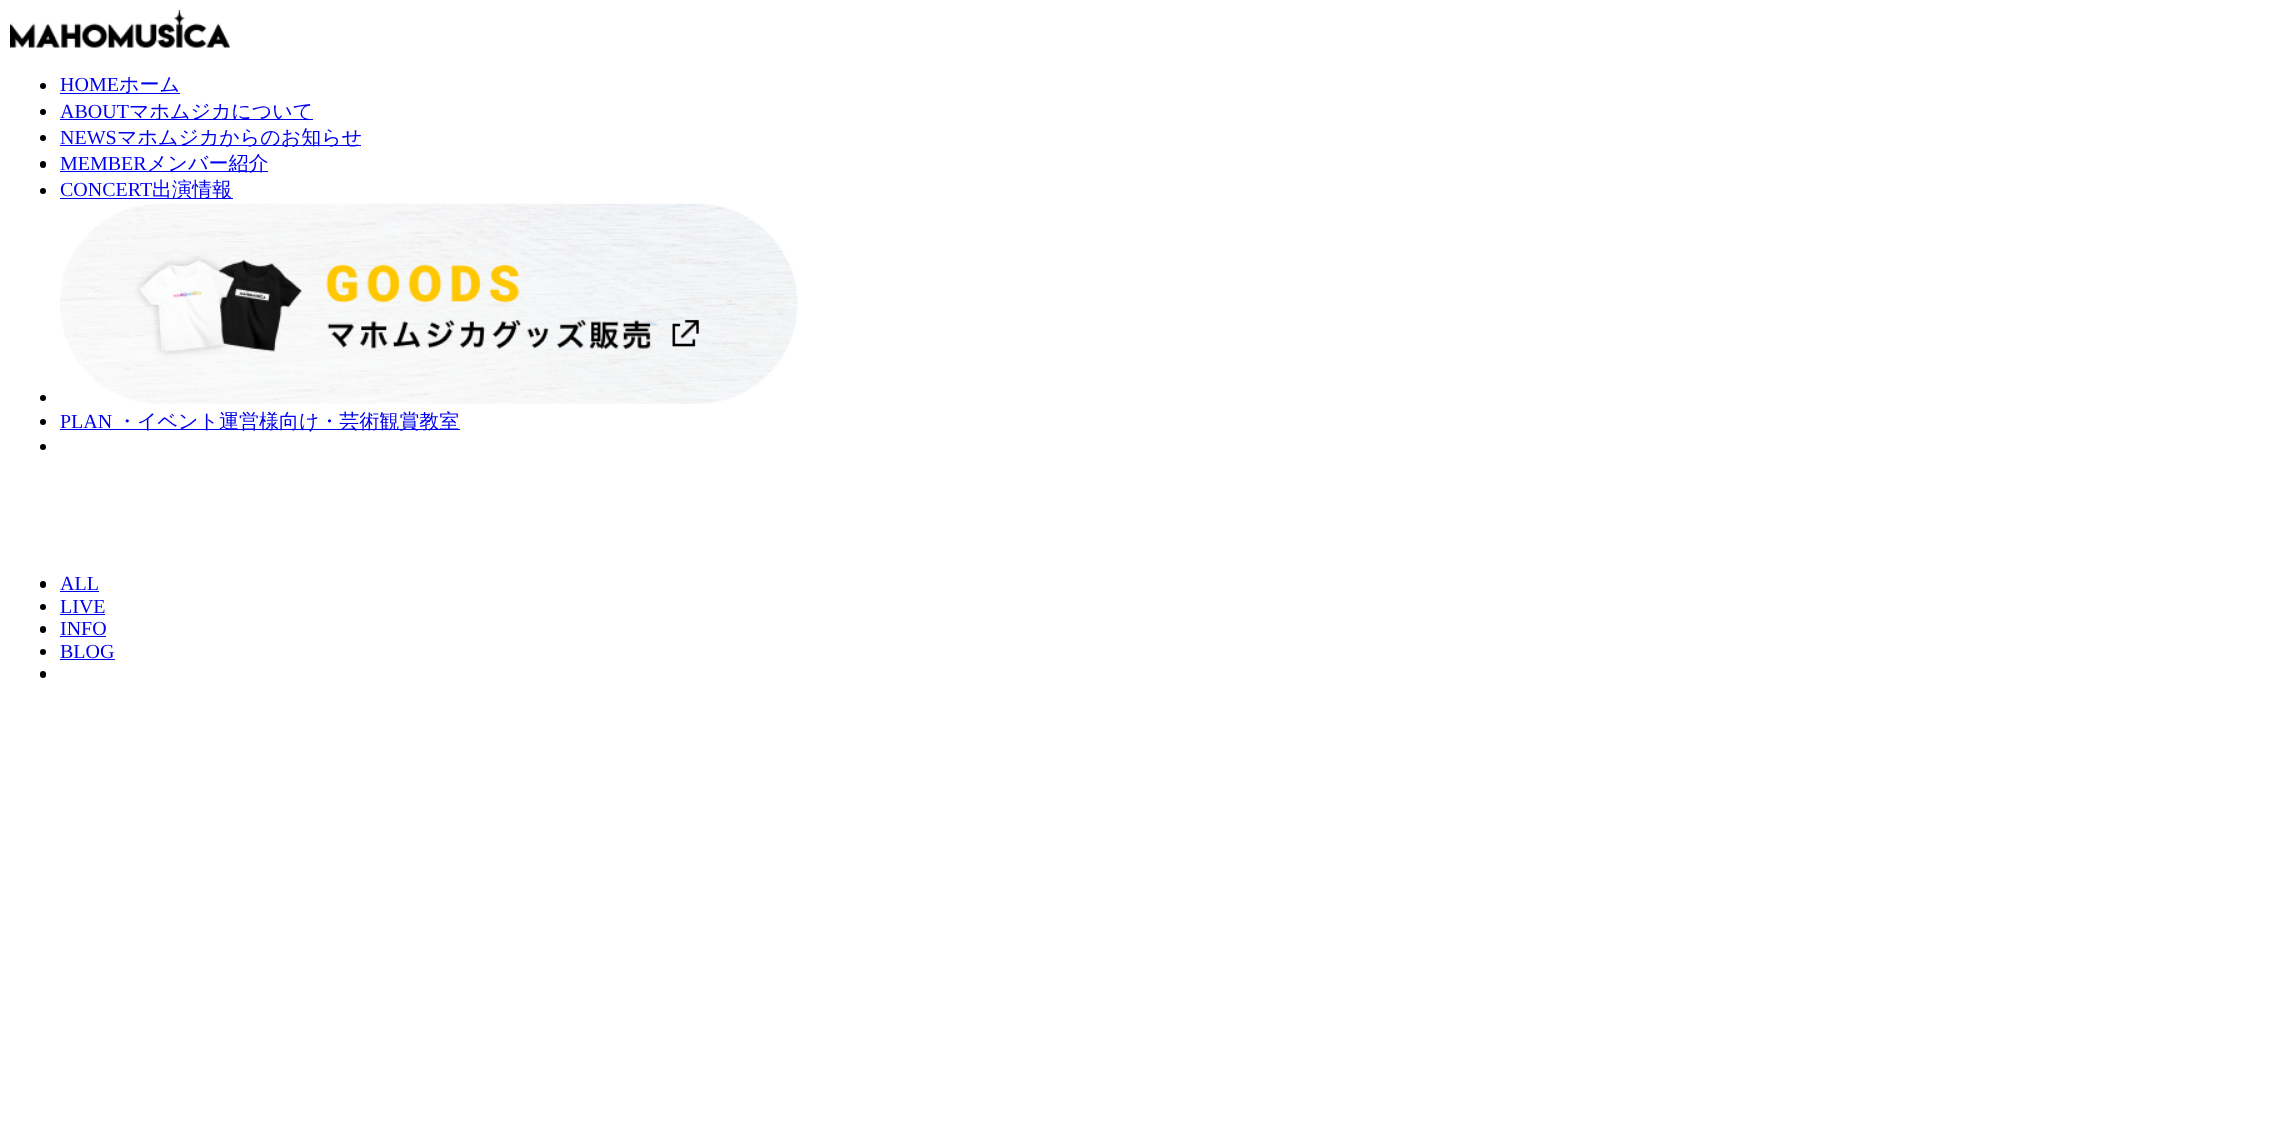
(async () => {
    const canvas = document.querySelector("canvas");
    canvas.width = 2294;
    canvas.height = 1121;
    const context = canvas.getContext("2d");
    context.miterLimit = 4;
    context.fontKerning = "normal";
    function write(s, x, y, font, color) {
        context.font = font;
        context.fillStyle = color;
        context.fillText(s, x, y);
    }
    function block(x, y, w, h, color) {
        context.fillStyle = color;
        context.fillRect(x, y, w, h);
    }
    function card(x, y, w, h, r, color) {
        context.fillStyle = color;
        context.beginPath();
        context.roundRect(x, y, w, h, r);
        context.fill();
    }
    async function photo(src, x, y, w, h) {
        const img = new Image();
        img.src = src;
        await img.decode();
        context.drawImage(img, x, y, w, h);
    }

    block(0, 0, 2294, 1121, "rgb(255, 255, 255)");
    await photo("media/1.png", 10, 10, 220, 38);
    context.fillStyle = "rgb(0, 0, 0)";
    context.beginPath();
    context.arc(43, 86, 3, 0, Math.PI * 2);
    context.fill();
    write("HOME", 60, 91, "20px Liberation Serif", "rgb(0, 0, 238)");
    block(60, 93, 120, 1, "rgb(0, 0, 238)");
    write("ホーム", 119, 91, "500 20px WenQuanYi Zen Hei", "rgb(0, 0, 238)");
    context.fillStyle = "rgb(0, 0, 0)";
    context.beginPath();
    context.arc(43, 112, 3, 0, Math.PI * 2);
    context.fill();
    write("ABOUT", 60, 118, "20px Liberation Serif", "rgb(0, 0, 238)");
    block(60, 119, 253, 1, "rgb(0, 0, 238)");
    write("マホムジカについて", 129, 118, "500 20px WenQuanYi Zen Hei", "rgb(0, 0, 238)");
    context.fillStyle = "rgb(0, 0, 0)";
    context.beginPath();
    context.arc(43, 138, 3, 0, Math.PI * 2);
    context.fill();
    write("NEWS", 60, 144, "20px Liberation Serif", "rgb(0, 0, 238)");
    block(60, 145, 301, 1, "rgb(0, 0, 238)");
    write("マホムジカからのお知らせ", 117, 144, "500 20px WenQuanYi Zen Hei", "rgb(0, 0, 238)");
    card(40, 161, 6, 7, 3, "rgb(0, 0, 0)");
    write("MEMBER", 60, 170, "20px Liberation Serif", "rgb(0, 0, 238)");
    block(60, 171, 208, 1, "rgb(0, 0, 238)");
    write("メンバー紹介", 147, 170, "500 20px WenQuanYi Zen Hei", "rgb(0, 0, 238)");
    context.fillStyle = "rgb(0, 0, 0)";
    context.beginPath();
    context.arc(43, 191, 3, 0, Math.PI * 2);
    context.fill();
    write("CONCERT", 60, 196, "20px Liberation Serif", "rgb(0, 0, 238)");
    block(60, 198, 173, 1, "rgb(0, 0, 238)");
    write("出演情報", 152, 196, "500 20px WenQuanYi Zen Hei", "rgb(0, 0, 238)");
    context.fillStyle = "rgb(0, 0, 0)";
    context.beginPath();
    context.arc(43, 398, 3, 0, Math.PI * 2);
    context.fill();
    await photo("media/2.png", 60, 203, 738, 201);
    context.beginPath();
    context.arc(43, 422, 3, 0, Math.PI * 2);
    context.fill();
    write("PLAN", 60, 428, "20px Liberation Serif", "rgb(0, 0, 238)");
    block(60, 429, 400, 1, "rgb(0, 0, 238)");
    write("・イベント運営様向け・芸術観賞教室", 117, 428, "500 20px WenQuanYi Zen Hei", "rgb(0, 0, 238)");
    context.fillStyle = "rgb(0, 0, 0)";
    context.beginPath();
    context.arc(43, 447, 3, 0, Math.PI * 2);
    context.fill();
    card(40, 581, 6, 7, 3, "rgb(0, 0, 0)");
    write("ALL", 60, 590, "20px Liberation Serif", "rgb(0, 0, 238)");
    block(60, 591, 39, 1, "rgb(0, 0, 238)");
    context.fillStyle = "rgb(0, 0, 0)";
    context.beginPath();
    context.arc(43, 607, 3, 0, Math.PI * 2);
    context.fill();
    write("LIVE", 60, 613, "20px Liberation Serif", "rgb(0, 0, 238)");
    block(60, 614, 45, 1, "rgb(0, 0, 238)");
    card(40, 626, 6, 7, 3, "rgb(0, 0, 0)");
    write("INFO", 60, 635, "20px Liberation Serif", "rgb(0, 0, 238)");
    block(60, 636, 46, 1, "rgb(0, 0, 238)");
    context.fillStyle = "rgb(0, 0, 0)";
    context.beginPath();
    context.arc(43, 652, 3, 0, Math.PI * 2);
    context.fill();
    write("BLOG", 60, 658, "20px Liberation Serif", "rgb(0, 0, 238)");
    block(60, 659, 55, 1, "rgb(0, 0, 238)");
    card(40, 671, 6, 7, 3, "rgb(0, 0, 0)");
})();
